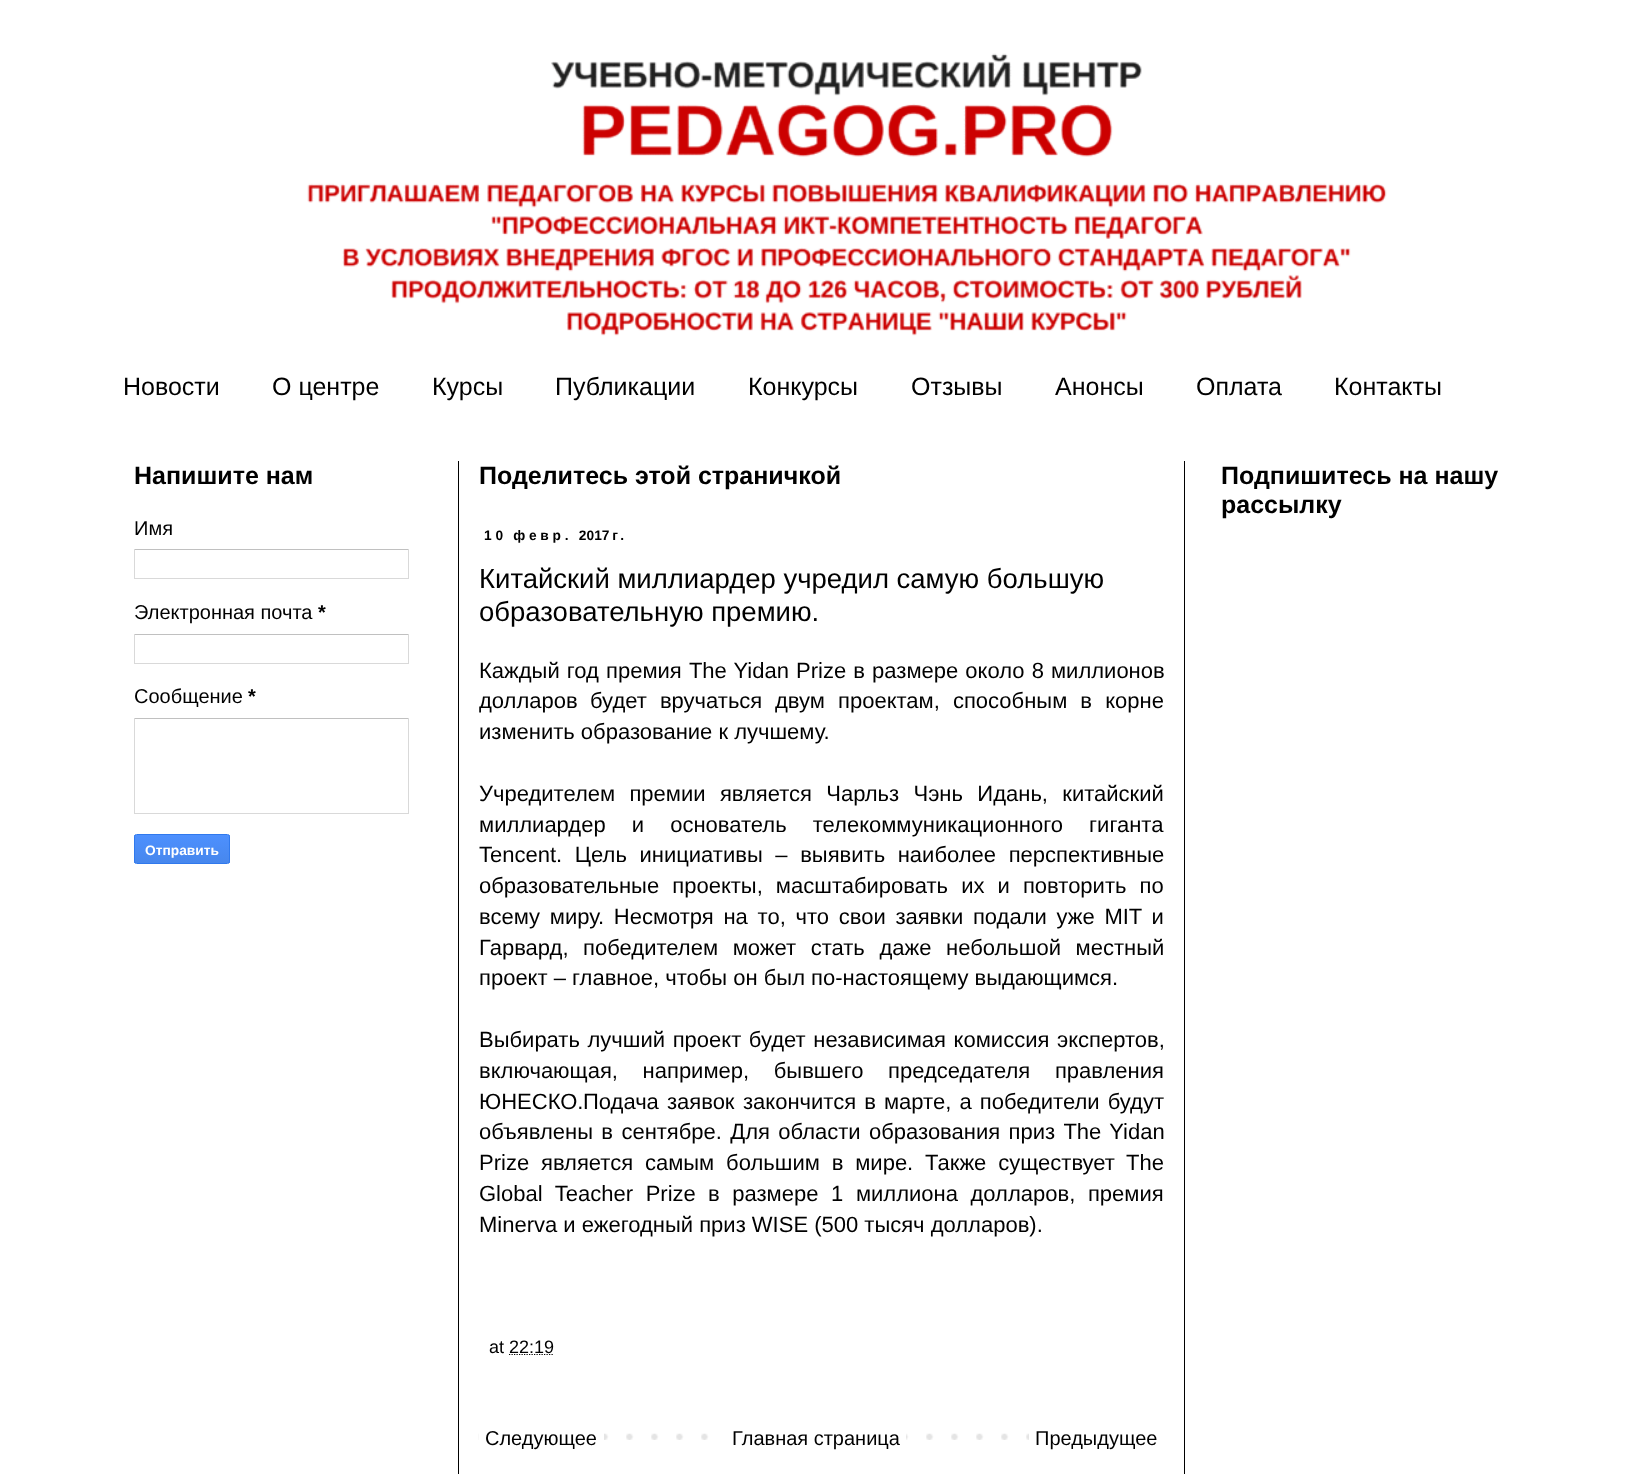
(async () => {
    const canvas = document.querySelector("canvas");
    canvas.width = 1642;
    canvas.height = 1484;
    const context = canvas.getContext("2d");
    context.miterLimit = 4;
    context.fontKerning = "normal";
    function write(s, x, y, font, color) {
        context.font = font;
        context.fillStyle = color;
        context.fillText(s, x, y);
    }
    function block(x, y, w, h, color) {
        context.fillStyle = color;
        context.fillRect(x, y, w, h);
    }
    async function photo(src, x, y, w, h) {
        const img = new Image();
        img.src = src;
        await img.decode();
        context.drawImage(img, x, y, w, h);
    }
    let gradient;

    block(0, 0, 1642, 1484, "rgb(255, 255, 255)");
    await photo("media/1.png", 307, 53, 1080, 283);
    write("Новости", 123, 395, "25px Liberation Sans", "rgb(0, 0, 0)");
    write("О центре", 272, 395, "25px Liberation Sans", "rgb(0, 0, 0)");
    write("Курсы", 432, 395, "25px Liberation Sans", "rgb(0, 0, 0)");
    write("Публикации", 555, 395, "25px Liberation Sans", "rgb(0, 0, 0)");
    write("Конкурсы", 748, 395, "25px Liberation Sans", "rgb(0, 0, 0)");
    write("Отзывы", 911, 395, "25px Liberation Sans", "rgb(0, 0, 0)");
    write("Анонсы", 1055, 395, "25px Liberation Sans", "rgb(0, 0, 0)");
    write("Оплата", 1196, 395, "25px Liberation Sans", "rgb(0, 0, 0)");
    write("Контакты", 1334, 395, "25px Liberation Sans", "rgb(0, 0, 0)");
    block(458, 461, 1, 1013, "rgb(0, 0, 0)");
    block(1184, 461, 1, 1013, "rgb(0, 0, 0)");
    write("Напишите нам", 134, 484, "bold 25px Liberation Sans", "rgb(0, 0, 0)");
    write("Имя", 134, 535, "20px Liberation Sans", "rgb(0, 0, 0)");
    block(134, 549, 275, 1, "rgb(192, 192, 192)");
    block(408, 549, 1, 30, "rgb(217, 217, 217)");
    block(134, 578, 275, 1, "rgb(217, 217, 217)");
    block(134, 549, 1, 30, "rgb(217, 217, 217)");
    write("Электронная почта", 134, 619, "20px Liberation Sans", "rgb(0, 0, 0)");
    write("*", 318, 619, "bold 20px Liberation Sans", "rgb(0, 0, 0)");
    block(134, 634, 275, 1, "rgb(192, 192, 192)");
    block(408, 634, 1, 30, "rgb(217, 217, 217)");
    block(134, 663, 275, 1, "rgb(217, 217, 217)");
    block(134, 634, 1, 30, "rgb(217, 217, 217)");
    write("Сообщение", 134, 703, "20px Liberation Sans", "rgb(0, 0, 0)");
    write("*", 248, 703, "bold 20px Liberation Sans", "rgb(0, 0, 0)");
    block(134, 718, 275, 1, "rgb(192, 192, 192)");
    block(408, 718, 1, 96, "rgb(217, 217, 217)");
    block(134, 813, 275, 1, "rgb(217, 217, 217)");
    block(134, 718, 1, 96, "rgb(217, 217, 217)");
    context.save();
    context.beginPath();
    context.roundRect(134, 834, 96, 30, 2.5);
    context.clip();
    gradient = context.createLinearGradient(182, 835, 182, 863);
    gradient.addColorStop(0, "rgb(77, 144, 254)");
    gradient.addColorStop(1, "rgb(71, 135, 237)");
    context.fillStyle = gradient;
    context.fillRect(134, 835, 96, 28);
    context.restore();
    context.beginPath();
    context.roundRect(134.5, 834.5, 95, 29, 2);
    context.strokeStyle = "rgb(48, 121, 237)";
    context.stroke();
    write("Отправить", 145, 855, "bold 13.75px Liberation Sans", "rgb(255, 255, 255)");
    write("Поделитесь этой страничкой", 479, 484, "bold 25px Liberation Sans", "rgb(0, 0, 0)");
    context.letterSpacing = "3.75px";
    context.wordSpacing = "-1px";
    write("10 февр. 2017 г.", 484, 540, "bold 13.75px Liberation Sans", "rgb(0, 0, 0)");
    context.letterSpacing = "0px";
    context.wordSpacing = "0px";
    write("Китайский миллиардер учредил самую большую", 479, 588, "27.5px Liberation Sans", "rgb(0, 0, 0)");
    write("образовательную премию.", 479, 621, "27.5px Liberation Sans", "rgb(0, 0, 0)");
    context.wordSpacing = "1px";
    write("Каждый год премия The Yidan Prize в размере около 8 миллионов", 479, 678, "22px Liberation Sans", "rgb(0, 0, 0)");
    context.wordSpacing = "0px";
    write("долларов", 479, 708, "22px Liberation Sans", "rgb(0, 0, 0)");
    context.wordSpacing = "7px";
    write("будет вручаться", 590, 708, "22px Liberation Sans", "rgb(0, 0, 0)");
    write("двум проектам, способным в корне", 775, 708, "22px Liberation Sans", "rgb(0, 0, 0)");
    context.wordSpacing = "0px";
    write("изменить образование к лучшему.", 479, 739, "22px Liberation Sans", "rgb(0, 0, 0)");
    context.wordSpacing = "8.25px";
    write("Учредителем премии является Чарльз Чэнь Идань, китайский", 479, 801, "22px Liberation Sans", "rgb(0, 0, 0)");
    context.wordSpacing = "20px";
    write("миллиардер и основатель телекоммуникационного гиганта", 479, 832, "22px Liberation Sans", "rgb(0, 0, 0)");
    context.wordSpacing = "6.5px";
    write("Tencent. Цель инициативы – выявить наиболее перспективные", 479, 862, "22px Liberation Sans", "rgb(0, 0, 0)");
    context.wordSpacing = "7px";
    write("образовательные проекты, масштабировать их и повторить по", 479, 893, "22px Liberation Sans", "rgb(0, 0, 0)");
    context.wordSpacing = "3.6px";
    write("всему миру. Несмотря на то, что свои заявки подали уже MIT и", 479, 924, "22px Liberation Sans", "rgb(0, 0, 0)");
    context.wordSpacing = "8.5px";
    write("Гарвард, победителем может стать даже небольшой местный", 479, 955, "22px Liberation Sans", "rgb(0, 0, 0)");
    context.wordSpacing = "0px";
    write("проект – главное, чтобы он был по-настоящему выдающимся.", 479, 985, "22px Liberation Sans", "rgb(0, 0, 0)");
    context.wordSpacing = "1.5px";
    write("Выбирать лучший проект будет независимая комиссия экспертов,", 479, 1047, "22px Liberation Sans", "rgb(0, 0, 0)");
    context.wordSpacing = "18.5px";
    write("включающая, например, бывшего председателя правления", 479, 1078, "22px Liberation Sans", "rgb(0, 0, 0)");
    context.wordSpacing = "0px";
    write("ЮНЕСКО.", 479, 1109, "22px Liberation Sans", "rgb(0, 0, 0)");
    context.wordSpacing = "2px";
    write("Подача заявок", 583, 1109, "22px Liberation Sans", "rgb(0, 0, 0)");
    write("закончится в марте, а победители будут", 743, 1109, "22px Liberation Sans", "rgb(0, 0, 0)");
    context.wordSpacing = "2.25px";
    write("объявлены в сентябре. Для области образования приз The Yidan", 479, 1139, "22px Liberation Sans", "rgb(0, 0, 0)");
    context.wordSpacing = "5.75px";
    write("Prize является самым большим в мире. Также существует", 479, 1170, "22px Liberation Sans", "rgb(0, 0, 0)");
    context.wordSpacing = "0px";
    write("The", 1126, 1170, "22px Liberation Sans", "rgb(0, 0, 0)");
    context.wordSpacing = "6.5px";
    write("Global Teacher Prize", 479, 1201, "22px Liberation Sans", "rgb(0, 0, 0)");
    write("в размере 1 миллиона долларов, премия", 708, 1201, "22px Liberation Sans", "rgb(0, 0, 0)");
    context.wordSpacing = "0px";
    write("Minerva и ежегодный приз WISE (500 тысяч долларов).", 479, 1232, "22px Liberation Sans", "rgb(0, 0, 0)");
    write("at", 489, 1353, "18px Liberation Sans", "rgb(0, 0, 0)");
    context.beginPath();
    context.moveTo(509, 1354.5);
    context.lineTo(554, 1354.5);
    context.strokeStyle = "rgb(0, 0, 0)";
    context.lineWidth = 1.2;
    context.setLineDash([1.25, 1.25]);
    context.stroke();
    write("22:19", 509, 1353, "18px Liberation Sans", "rgb(0, 0, 0)");
    await photo("media/2.png", 478, 1433, 551, 7);
    block(479, 1433, 125, 7, "rgb(255, 255, 255)");
    write("Следующее", 485, 1445, "20px Liberation Sans", "rgb(0, 0, 0)");
    block(726, 1433, 180, 7, "rgb(255, 255, 255)");
    write("Главная страница", 732, 1445, "20px Liberation Sans", "rgb(0, 0, 0)");
    write("Предыдущее", 1035, 1445, "20px Liberation Sans", "rgb(0, 0, 0)");
    write("Подпишитесь на нашу", 1221, 484, "bold 25px Liberation Sans", "rgb(0, 0, 0)");
    write("рассылку", 1221, 513, "bold 25px Liberation Sans", "rgb(0, 0, 0)");
})();
